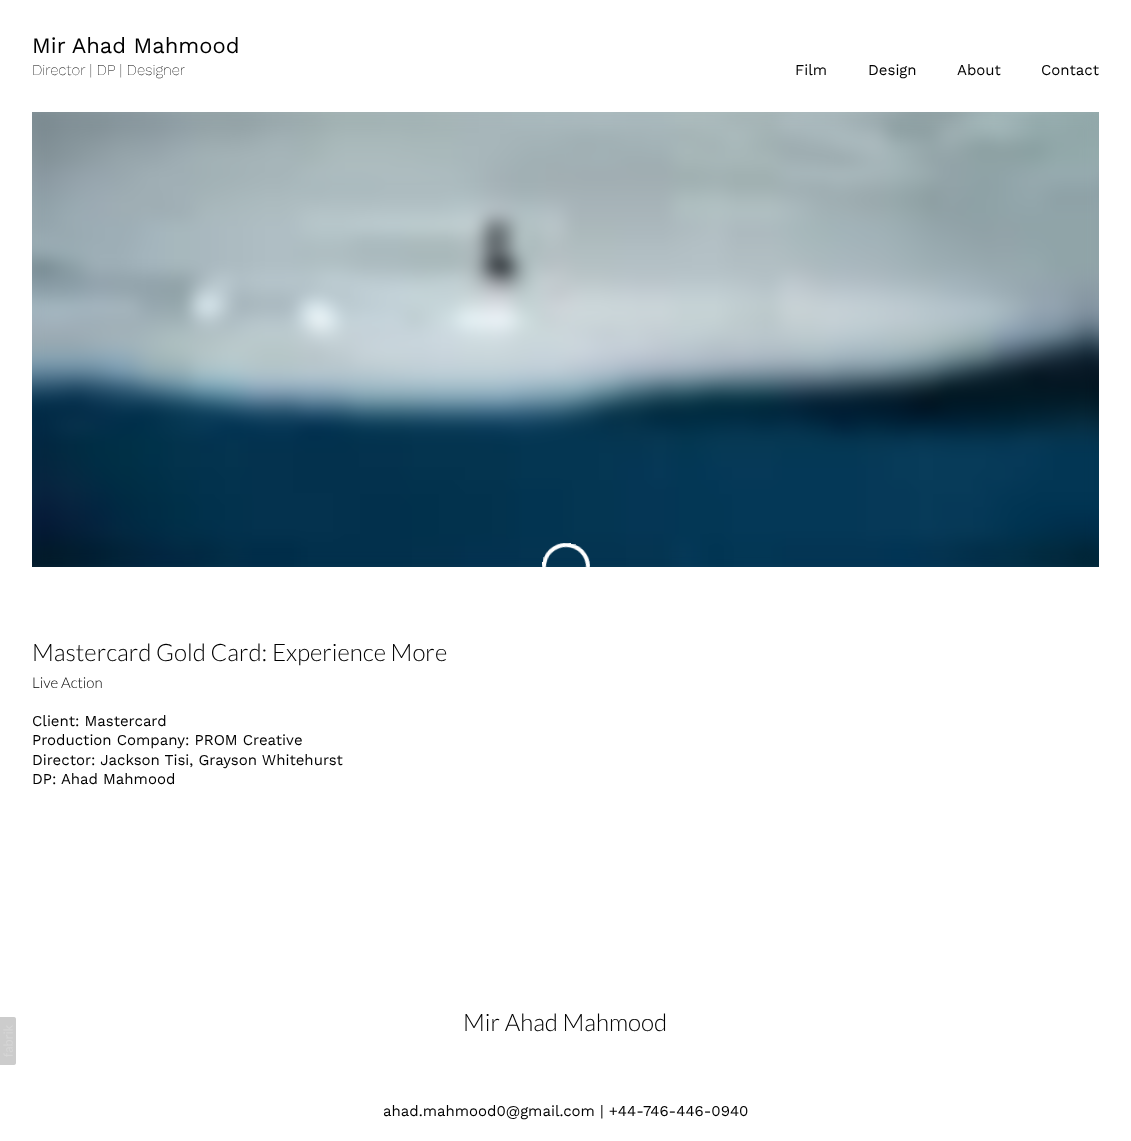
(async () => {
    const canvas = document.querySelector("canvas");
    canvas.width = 1131;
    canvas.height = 1141;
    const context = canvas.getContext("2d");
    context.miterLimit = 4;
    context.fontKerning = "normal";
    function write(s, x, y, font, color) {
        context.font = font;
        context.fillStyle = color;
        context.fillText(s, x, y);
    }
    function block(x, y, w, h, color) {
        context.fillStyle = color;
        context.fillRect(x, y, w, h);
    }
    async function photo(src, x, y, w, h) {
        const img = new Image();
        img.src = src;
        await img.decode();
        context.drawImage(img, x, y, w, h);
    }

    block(0, 0, 1131, 1141, "rgb(255, 255, 255)");
    await photo("media/1.png", 0, 1017, 16, 48);
    write("Mir Ahad Mahmood", 32, 53, "22px Work Sans", "rgb(0, 0, 0)");
    write("Director | DP | Designer", 32, 75, "200 15px Work Sans", "rgb(0, 0, 0)");
    write("Film", 795, 75, "15px Work Sans", "rgb(0, 0, 0)");
    write("Design", 868, 75, "15px Work Sans", "rgb(0, 0, 0)");
    write("About", 957, 75, "15px Work Sans", "rgb(0, 0, 0)");
    write("Contact", 1041, 75, "15px Work Sans", "rgb(0, 0, 0)");
    await photo("media/2.png", 32, 112, 1067, 455);
    write("Mastercard Gold Card: Experience More", 32, 661, "300 24px Lato", "rgb(0, 0, 0)");
    write("Live Action", 32, 688, "300 15px Lato", "rgb(0, 0, 0)");
    write("Client: Mastercard", 32, 726, "15px Work Sans", "rgb(0, 0, 0)");
    write("Production Company: PROM Creative", 32, 745, "15px Work Sans", "rgb(0, 0, 0)");
    write("Director: Jackson Tisi, Grayson Whitehurst", 32, 765, "15px Work Sans", "rgb(0, 0, 0)");
    write("DP: Ahad Mahmood", 32, 784, "15px Work Sans", "rgb(0, 0, 0)");
    write("Mir Ahad Mahmood", 463, 1031, "300 24px Lato", "rgb(0, 0, 0)");
    write("ahad.mahmood0@gmail.com | +44-746-446-0940", 383, 1116, "15px Work Sans", "rgb(0, 0, 0)");
})();
